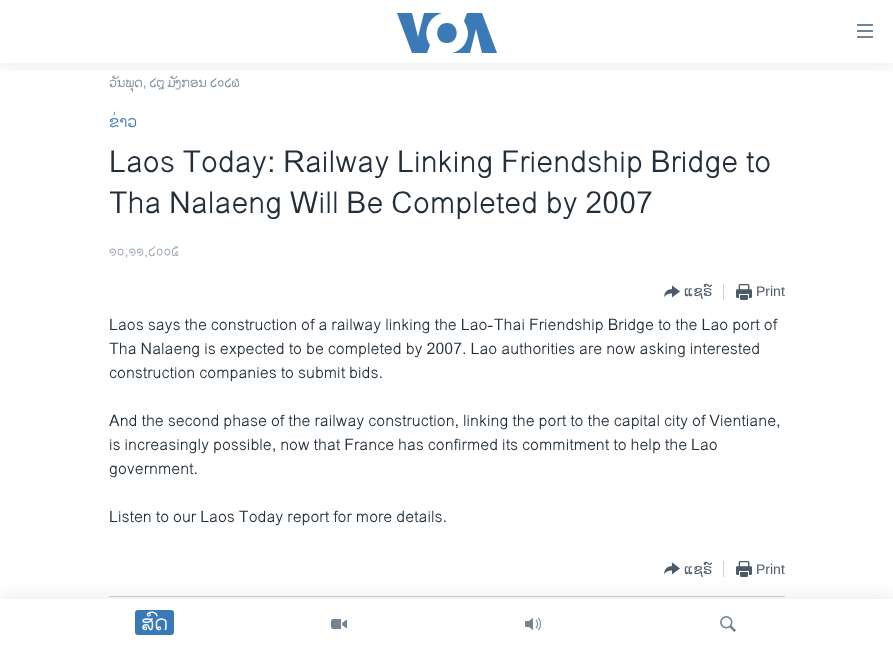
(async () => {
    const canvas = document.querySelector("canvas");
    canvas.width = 893;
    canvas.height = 649;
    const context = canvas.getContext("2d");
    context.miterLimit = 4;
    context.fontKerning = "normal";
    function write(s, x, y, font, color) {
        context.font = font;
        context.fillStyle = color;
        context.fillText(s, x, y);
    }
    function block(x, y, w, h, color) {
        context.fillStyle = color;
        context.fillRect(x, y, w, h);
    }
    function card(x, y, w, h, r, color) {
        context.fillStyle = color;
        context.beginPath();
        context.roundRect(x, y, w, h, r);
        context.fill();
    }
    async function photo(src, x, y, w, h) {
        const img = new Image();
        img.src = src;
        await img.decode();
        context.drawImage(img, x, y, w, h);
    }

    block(0, 0, 893, 649, "rgb(255, 255, 255)");
    write("ວັນພຸດ, ໒໘ ມັງກອນ ໒໐໒໖", 109, 87, "13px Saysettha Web", "rgb(118, 132, 146)");
    write("ຂ່າວ", 109, 127, "16px Saysettha Web", "rgb(58, 121, 183)");
    write("Laos Today: Railway Linking Friendship Bridge to", 109, 172, "30.4px Saysettha Web", "rgb(34, 47, 58)");
    write("Tha Nalaeng Will Be Completed by 2007", 109, 213, "30.4px Saysettha Web", "rgb(34, 47, 58)");
    write("໑໐,໑໑,໒໐໐໕", 109, 256, "14px Saysettha Web", "rgb(161, 170, 180)");
    await photo("media/1.png", 664, 285, 16, 13);
    write("ແຊຣ໌", 684, 296, "14px DejaVu Sans", "rgb(77, 90, 103)");
    block(723, 284, 1, 16, "rgb(203, 209, 214)");
    await photo("media/2.png", 736, 284, 16, 16);
    write("Print", 756, 296, "14px Liberation Sans", "rgb(77, 90, 103)");
    write("Laos says the construction of a railway linking the Lao-Thai Friendship Bridge to the Lao port of", 109, 330, "16px Saysettha Web", "rgb(34, 47, 58)");
    write("Tha Nalaeng is expected to be completed by 2007. Lao authorities are now asking interested", 109, 354, "16px Saysettha Web", "rgb(34, 47, 58)");
    write("construction companies to submit bids.", 109, 378, "16px Saysettha Web", "rgb(34, 47, 58)");
    write("And the second phase of the railway construction, linking the port to the capital city of Vientiane,", 109, 426, "16px Saysettha Web", "rgb(34, 47, 58)");
    write("is increasingly possible, now that France has confirmed its commitment to help the Lao", 109, 450, "16px Saysettha Web", "rgb(34, 47, 58)");
    write("government.", 109, 474, "16px Saysettha Web", "rgb(34, 47, 58)");
    write("Listen to our Laos Today report for more details.", 109, 522, "16px Saysettha Web", "rgb(34, 47, 58)");
    block(109, 596, 676, 1, "rgb(203, 209, 214)");
    await photo("media/1.png", 664, 562, 16, 13);
    write("ແຊຣ໌", 684, 574, "14px DejaVu Sans", "rgb(77, 90, 103)");
    block(723, 561, 1, 16, "rgb(203, 209, 214)");
    await photo("media/2.png", 736, 561, 16, 16);
    write("Print", 756, 574, "14px Liberation Sans", "rgb(77, 90, 103)");
    context.save();
    context.beginPath();
    context.rect(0, 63, 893, 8);
    context.clip();
    context.fillStyle = "rgba(0, 0, 0, 0.1)";
    context.filter = "blur(10px)";
    context.beginPath();
    context.rect(0, 0, 893, 63);
    context.fill();
    context.filter = "none";
    context.restore();
    context.fillStyle = "rgb(59, 121, 183)";
    context.beginPath();
    context.moveTo(430, 45);
    context.lineTo(427, 53);
    context.lineTo(412, 53);
    context.lineTo(397, 13);
    context.lineTo(412, 13);
    context.lineTo(418, 37);
    context.lineTo(424, 13);
    context.lineTo(442, 13);
    context.bezierCurveTo(428, 17, 422, 33, 430, 45);
    context.closePath();
    context.moveTo(447, 23);
    context.bezierCurveTo(434, 23, 434, 43, 447, 43);
    context.bezierCurveTo(460, 43, 460, 23, 447, 23);
    context.closePath();
    context.moveTo(468, 33);
    context.bezierCurveTo(468, 43, 461, 51, 452, 53);
    context.lineTo(470, 53);
    context.lineTo(476, 29);
    context.lineTo(482, 53);
    context.lineTo(497, 53);
    context.lineTo(482, 13);
    context.lineTo(467, 13);
    context.lineTo(464, 21);
    context.bezierCurveTo(466, 25, 468, 29, 468, 33);
    context.closePath();
    context.fill();
    await photo("media/3.png", 857, 24, 16, 14);
    context.fillStyle = "rgba(0, 0, 0, 0.1)";
    context.filter = "blur(10px)";
    context.beginPath();
    context.rect(0, 599, 893, 50);
    context.fill();
    context.filter = "none";
    block(0, 599, 893, 50, "rgb(255, 255, 255)");
    card(135, 610, 39, 25, 3, "rgb(58, 121, 183)");
    write("ສົດ", 141, 630, "21px Saysettha Web", "rgb(255, 255, 255)");
    await photo("media/4.png", 331, 619, 16, 10);
    await photo("media/5.png", 525, 617, 16, 14);
    await photo("media/6.png", 720, 616, 16, 16);
})();
